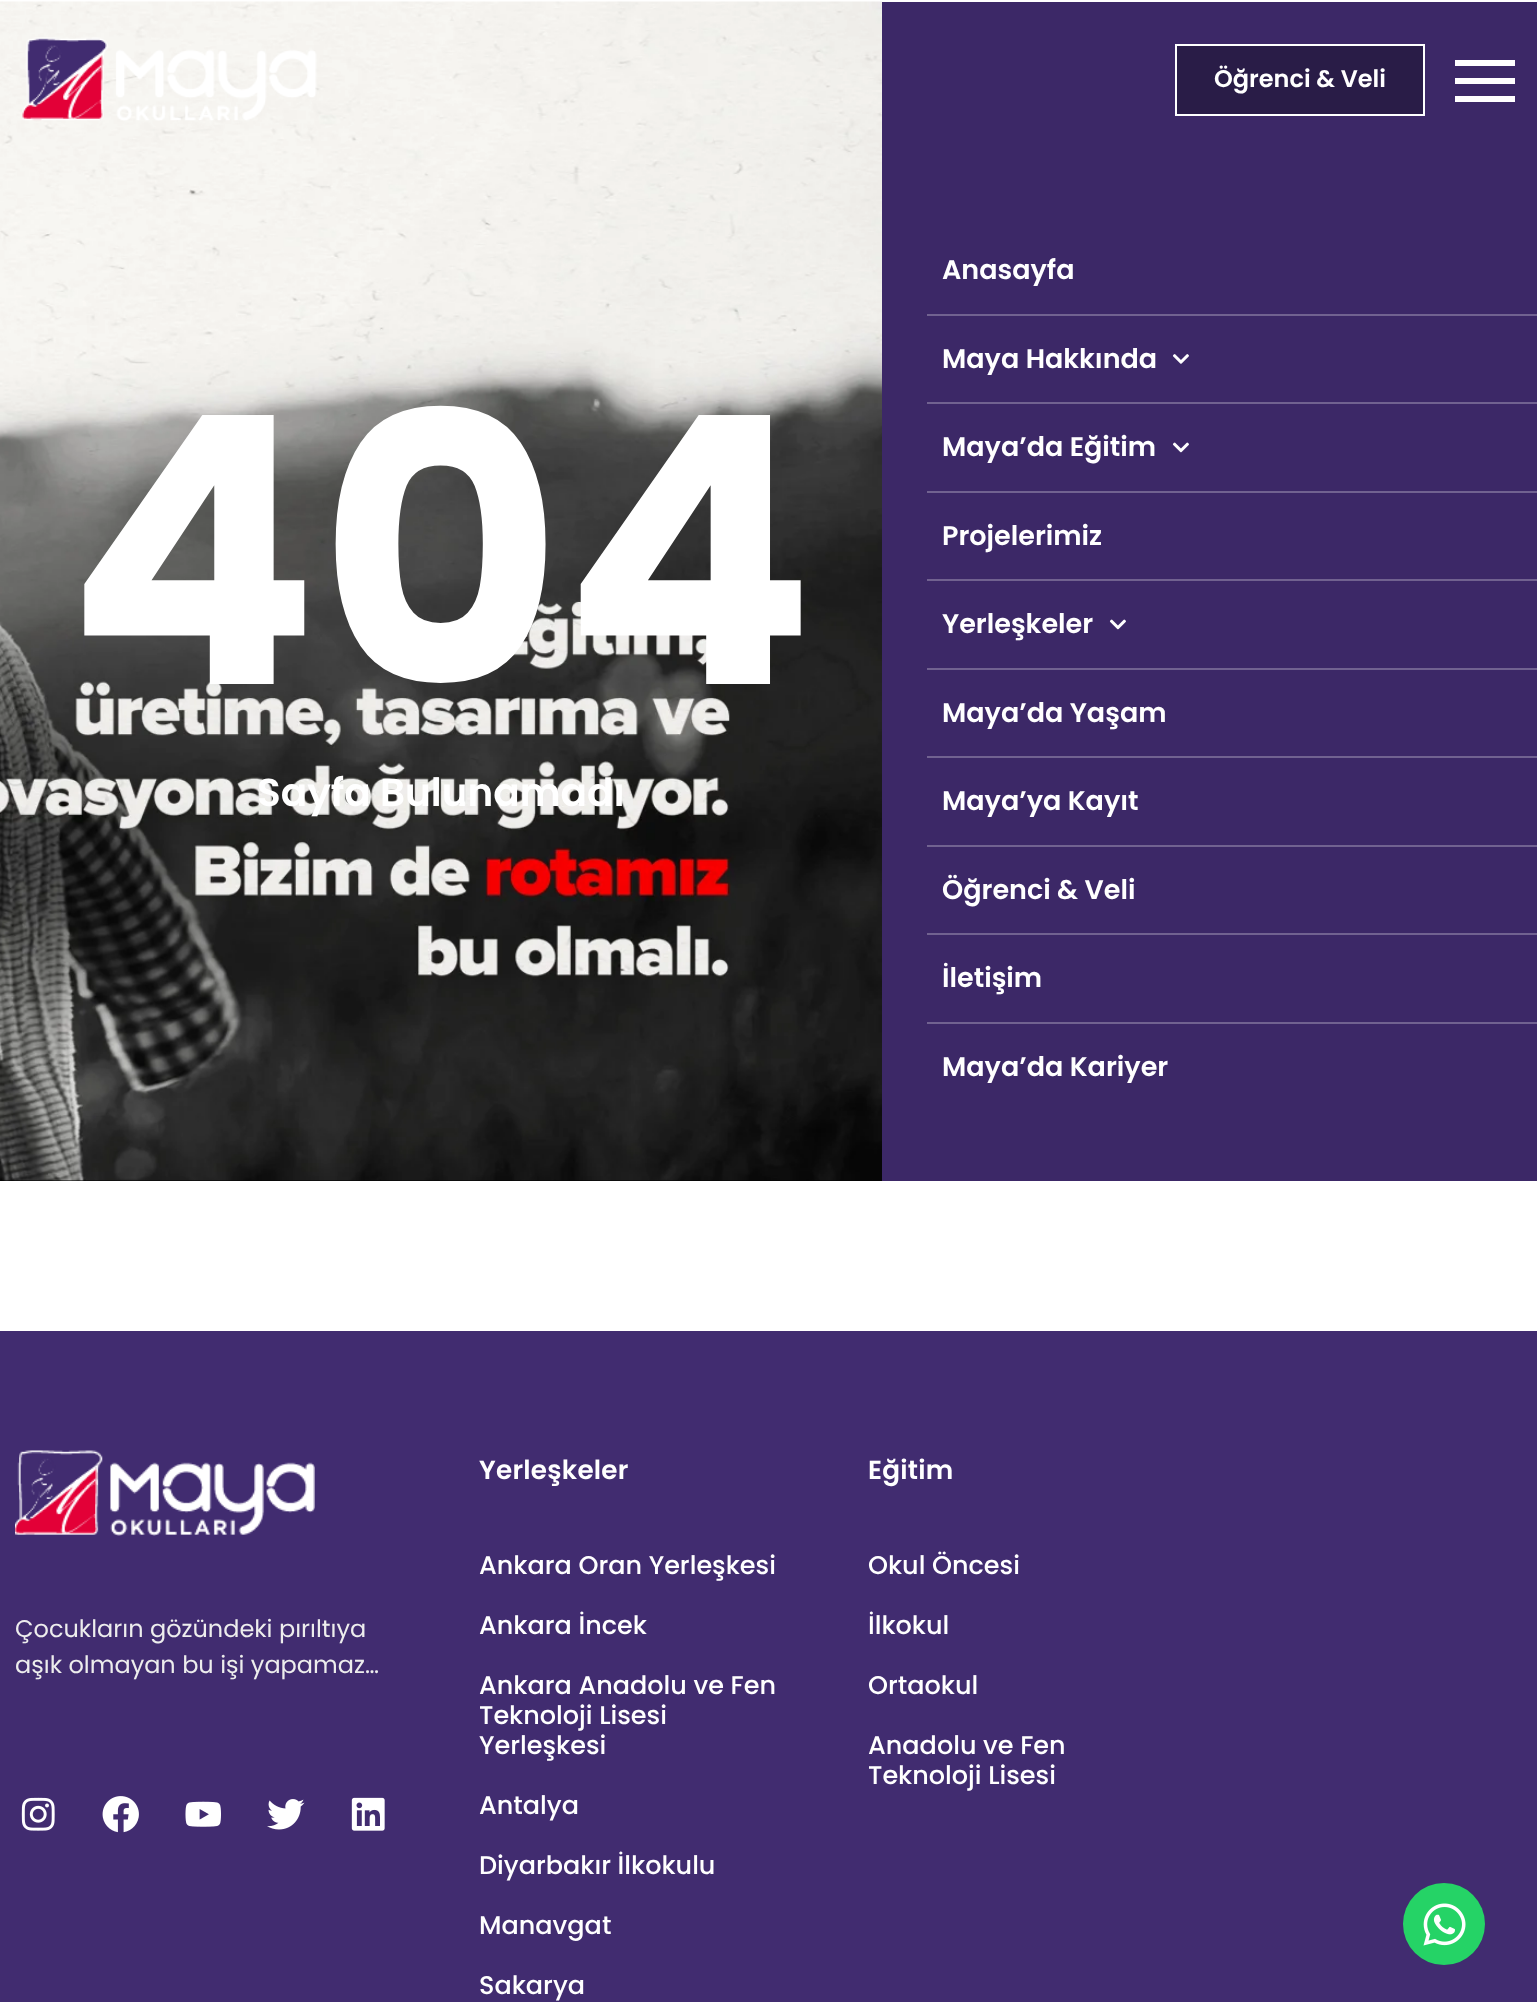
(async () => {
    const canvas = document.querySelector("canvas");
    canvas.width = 1537;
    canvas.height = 2002;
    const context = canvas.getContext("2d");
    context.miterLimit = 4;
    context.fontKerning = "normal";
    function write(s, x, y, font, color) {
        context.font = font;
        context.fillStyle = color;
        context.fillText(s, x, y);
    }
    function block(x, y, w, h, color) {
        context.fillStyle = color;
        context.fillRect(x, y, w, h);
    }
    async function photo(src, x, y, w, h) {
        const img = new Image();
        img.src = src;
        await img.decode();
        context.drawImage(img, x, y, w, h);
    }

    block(0, 0, 1537, 2002, "rgb(255, 255, 255)");
    block(0, 1180, 882, 1, "rgb(0, 0, 0)");
    await photo("media/2.png", 0, 1, 882, 1180);
    await photo("media/1.png", 22, 37, 295, 84);
    block(882, 2, 655, 1179, "rgb(60, 40, 103)");
    context.fillStyle = "rgb(41, 28, 71)";
    context.beginPath();
    context.rect(1176, 45, 248, 70);
    context.fill();
    context.strokeStyle = "rgb(255, 255, 255)";
    context.lineWidth = 2;
    context.stroke();
    write("Öğrenci & Veli", 1214, 87, "600 24px Poppins", "rgb(255, 255, 255)");
    context.beginPath();
    context.moveTo(1455, 60);
    context.lineTo(1455, 66);
    context.lineTo(1515, 66);
    context.lineTo(1515, 60);
    context.closePath();
    context.moveTo(1455, 78);
    context.lineTo(1455, 84);
    context.lineTo(1515, 84);
    context.lineTo(1515, 78);
    context.closePath();
    context.moveTo(1455, 96);
    context.lineTo(1455, 102);
    context.lineTo(1515, 102);
    context.lineTo(1515, 96);
    context.closePath();
    context.fill();
    write("404", 66, 684, "bold 373.5px Poppins", "rgb(255, 255, 255)");
    write("Sayfa Bulunamadı", 257, 806, "600 39px Poppins", "rgb(255, 255, 255)");
    block(927, 314, 610, 2, "rgb(113, 98, 144)");
    write("Anasayfa", 942, 279, "600 27px Poppins", "rgb(255, 255, 255)");
    block(927, 402, 610, 2, "rgb(113, 98, 144)");
    write("Maya Hakkında", 942, 368, "600 27px Poppins", "rgb(255, 255, 255)");
    await photo("media/3.png", 1172, 354, 17, 10);
    block(927, 491, 610, 2, "rgb(113, 98, 144)");
    write("Maya’da Eğitim", 942, 456, "600 27px Poppins", "rgb(255, 255, 255)");
    await photo("media/4.png", 1172, 442, 17, 11);
    block(927, 579, 610, 2, "rgb(113, 98, 144)");
    write("Projelerimiz", 942, 545, "600 27px Poppins", "rgb(255, 255, 255)");
    block(927, 668, 610, 2, "rgb(113, 98, 144)");
    write("Yerleşkeler", 942, 633, "600 27px Poppins", "rgb(255, 255, 255)");
    await photo("media/4.png", 1109, 619, 17, 11);
    block(927, 756, 610, 2, "rgb(113, 98, 144)");
    write("Maya’da Yaşam", 942, 722, "600 27px Poppins", "rgb(255, 255, 255)");
    block(927, 845, 610, 2, "rgb(113, 98, 144)");
    write("Maya’ya Kayıt", 942, 810, "600 27px Poppins", "rgb(255, 255, 255)");
    block(927, 933, 610, 2, "rgb(113, 98, 144)");
    write("Öğrenci & Veli", 942, 899, "600 27px Poppins", "rgb(255, 255, 255)");
    block(927, 1022, 610, 2, "rgb(113, 98, 144)");
    write("İletişim", 942, 987, "600 27px Poppins", "rgb(255, 255, 255)");
    write("Maya’da Kariyer", 942, 1076, "600 27px Poppins", "rgb(255, 255, 255)");
    block(0, 1331, 1537, 671, "rgb(65, 44, 112)");
    await photo("media/5.png", 15, 1450, 300, 86);
    write("Çocukların gözündeki pırıltıya", 15, 1637, "24px Poppins", "rgb(237, 237, 237)");
    write("aşık olmayan bu işi yapamaz…", 15, 1673, "24px Poppins", "rgb(237, 237, 237)");
    await photo("media/6.png", 21, 1797, 34, 34);
    await photo("media/7.png", 102, 1796, 37, 37);
    await photo("media/8.png", 185, 1801, 36, 26);
    await photo("media/9.png", 267, 1799, 38, 31);
    await photo("media/10.png", 351, 1797, 34, 34);
    context.letterSpacing = "0.25px";
    write("Yerleşkeler", 479, 1479, "600 26.25px Poppins", "rgb(255, 255, 255)");
    context.letterSpacing = "0px";
    write("Ankara Oran Yerleşkesi", 479, 1574, "500 25.5px Poppins", "rgb(255, 255, 255)");
    write("Ankara İncek", 479, 1634, "500 25.5px Poppins", "rgb(255, 255, 255)");
    write("Ankara Anadolu ve Fen", 479, 1694, "500 25.5px Poppins", "rgb(255, 255, 255)");
    write("Teknoloji Lisesi", 479, 1724, "500 25.5px Poppins", "rgb(255, 255, 255)");
    write("Yerleşkesi", 479, 1754, "500 25.5px Poppins", "rgb(255, 255, 255)");
    write("Antalya", 479, 1814, "500 25.5px Poppins", "rgb(255, 255, 255)");
    write("Diyarbakır İlkokulu", 479, 1874, "500 25.5px Poppins", "rgb(255, 255, 255)");
    write("Manavgat", 479, 1934, "500 25.5px Poppins", "rgb(255, 255, 255)");
    write("Sakarya", 479, 1994, "500 25.5px Poppins", "rgb(255, 255, 255)");
    context.letterSpacing = "0.25px";
    write("Eğitim", 868, 1479, "600 26.25px Poppins", "rgb(255, 255, 255)");
    context.letterSpacing = "0px";
    write("Okul Öncesi", 868, 1574, "500 25.5px Poppins", "rgb(255, 255, 255)");
    write("İlkokul", 868, 1634, "500 25.5px Poppins", "rgb(255, 255, 255)");
    write("Ortaokul", 868, 1694, "500 25.5px Poppins", "rgb(255, 255, 255)");
    write("Anadolu ve Fen", 868, 1754, "500 25.5px Poppins", "rgb(255, 255, 255)");
    write("Teknoloji Lisesi", 868, 1784, "500 25.5px Poppins", "rgb(255, 255, 255)");
    context.fillStyle = "rgb(37, 211, 102)";
    context.beginPath();
    context.arc(1444, 1924, 41, 0, Math.PI * 2);
    context.fill();
    await photo("media/11.png", 1423, 1903, 43, 43);
})();
